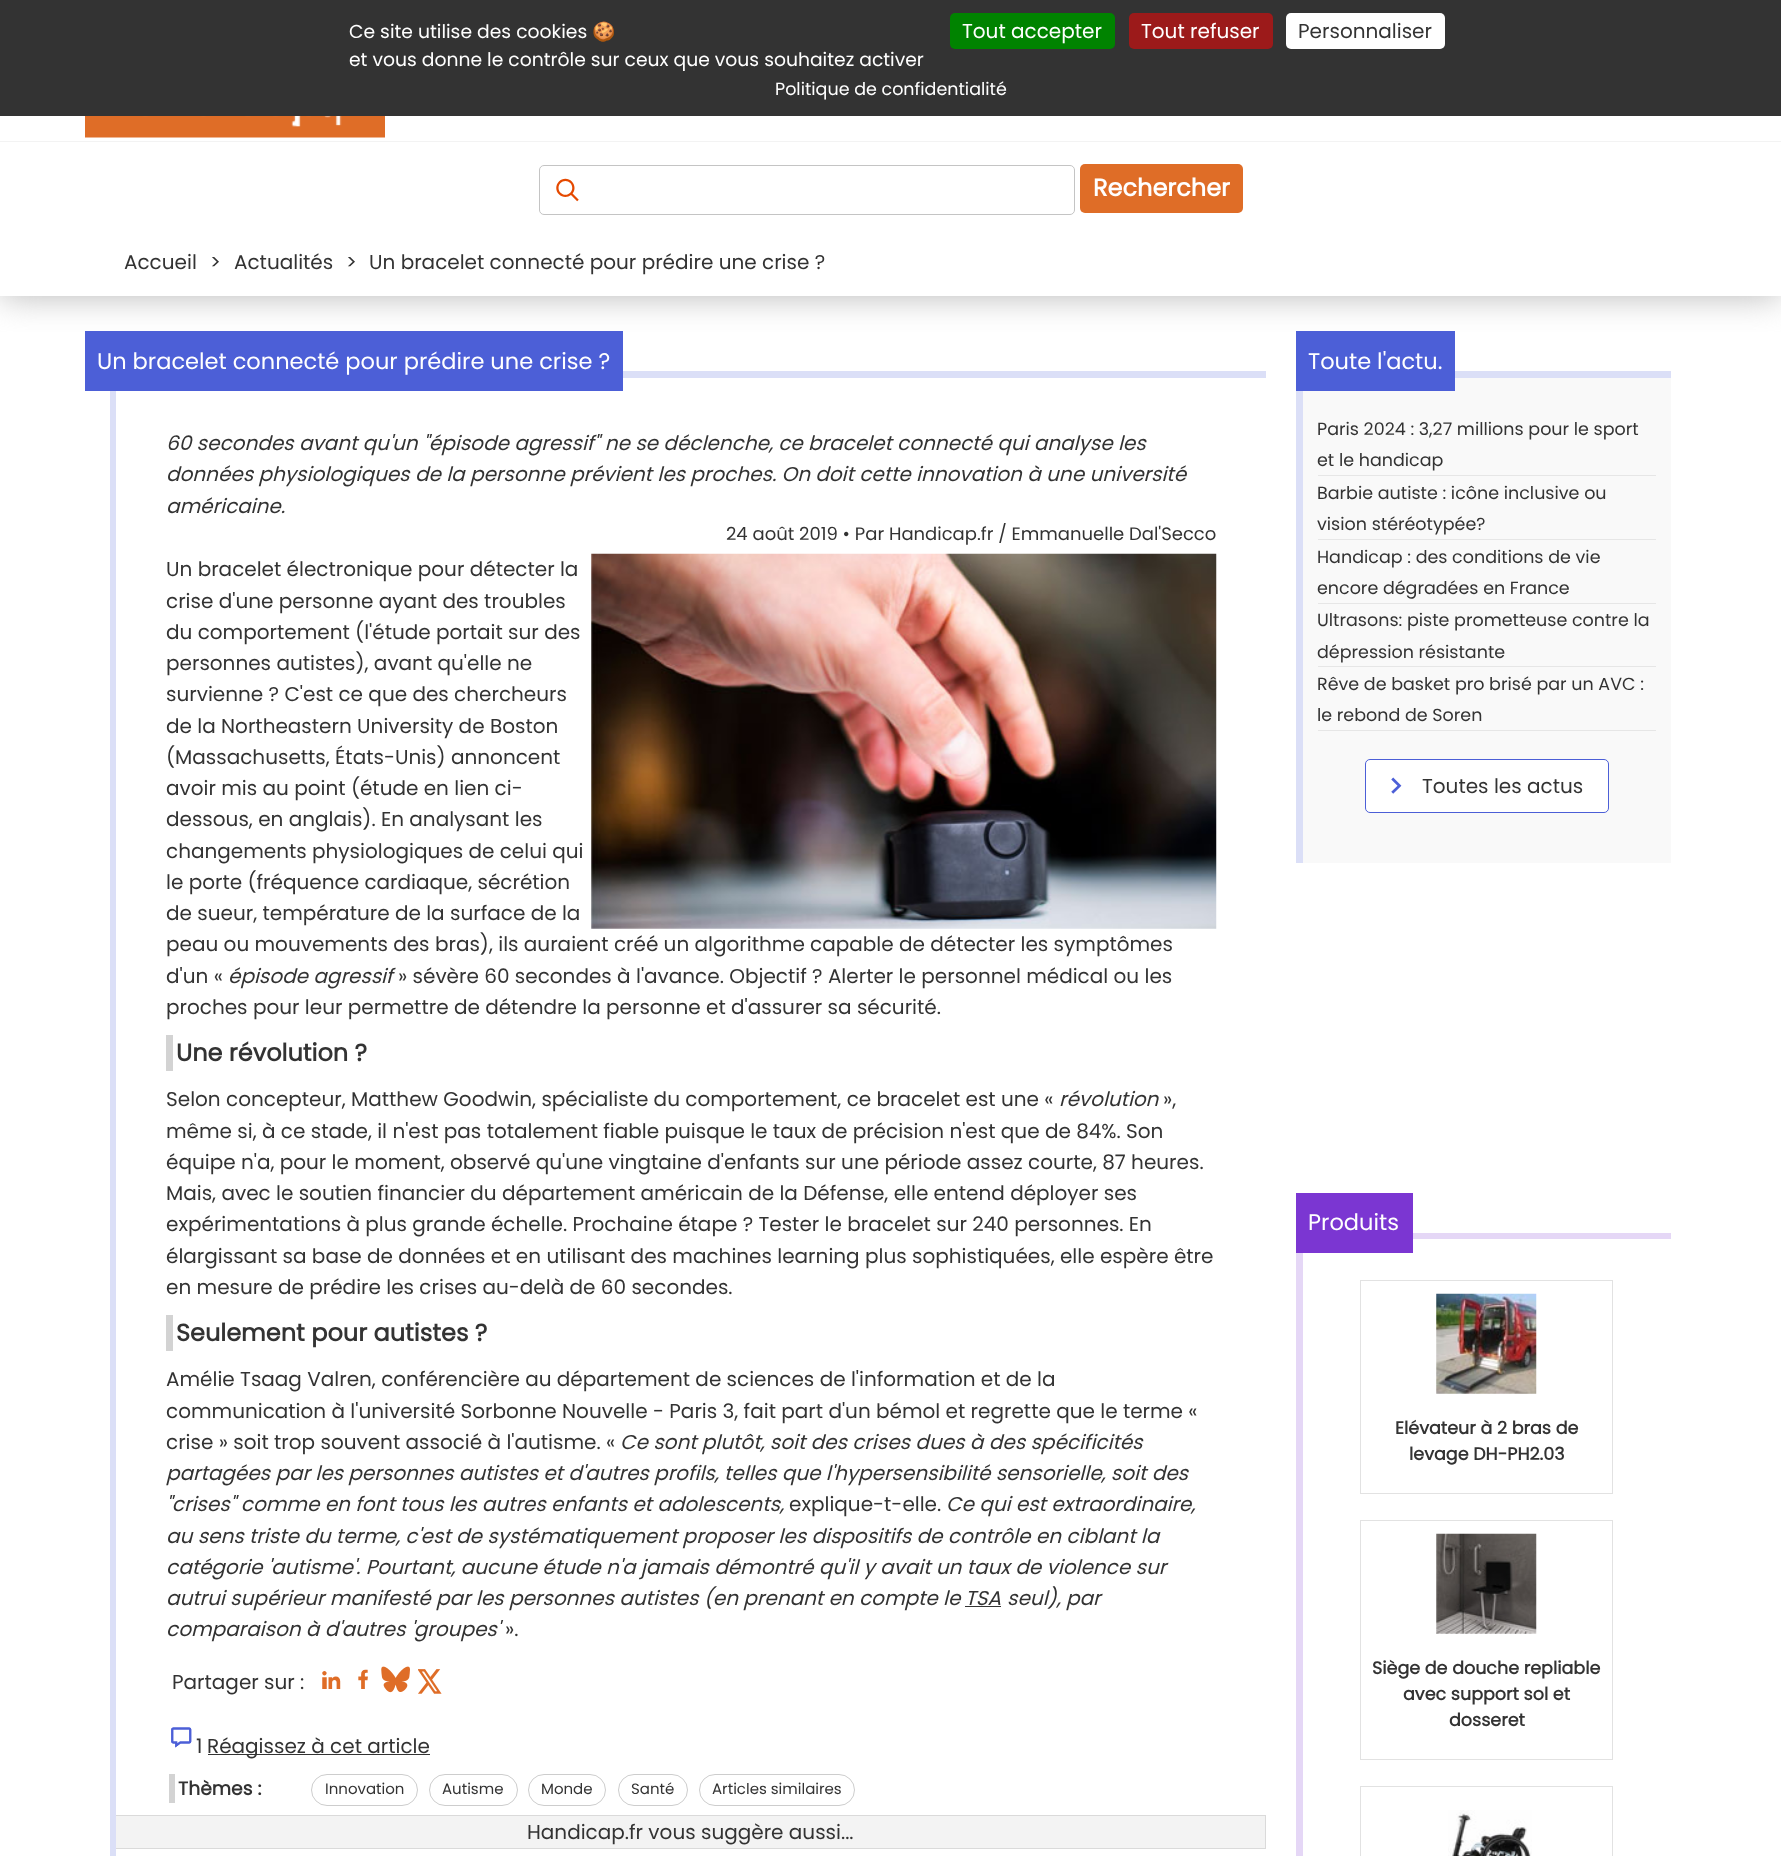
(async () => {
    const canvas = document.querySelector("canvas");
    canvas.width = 1781;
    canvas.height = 1856;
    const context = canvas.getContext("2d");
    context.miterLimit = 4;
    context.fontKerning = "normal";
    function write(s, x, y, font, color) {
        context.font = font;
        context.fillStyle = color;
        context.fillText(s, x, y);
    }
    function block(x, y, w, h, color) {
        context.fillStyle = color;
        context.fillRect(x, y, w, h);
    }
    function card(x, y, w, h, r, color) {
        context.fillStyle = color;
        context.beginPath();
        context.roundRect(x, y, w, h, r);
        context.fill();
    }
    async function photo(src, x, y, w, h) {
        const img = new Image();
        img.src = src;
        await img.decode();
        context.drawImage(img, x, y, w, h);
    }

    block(0, 0, 1781, 1856, "rgb(255, 255, 255)");
    context.save();
    context.beginPath();
    context.rect(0, 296, 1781, 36);
    context.clip();
    context.fillStyle = "rgb(183, 183, 183)";
    context.filter = "blur(17.5px)";
    context.beginPath();
    context.rect(0, 10, 1781, 286);
    context.fill();
    context.filter = "none";
    context.restore();
    block(0, 0, 1781, 116, "rgb(51, 51, 51)");
    write("Ce site utilise des cookies", 349, 38, "18.75px Poppins", "rgb(255, 255, 255)");
    write("🍪", 592, 38, "18.75px Noto Color Emoji", "rgb(255, 255, 255)");
    write("et vous donne le contrôle sur ceux que vous souhaitez activer", 349, 66, "18.75px Poppins", "rgb(255, 255, 255)");
    card(950, 13, 165, 36, 5, "rgb(0, 131, 0)");
    write("Tout accepter", 962, 38, "20px Poppins", "rgb(255, 255, 255)");
    card(1129, 13, 144, 36, 5, "rgb(156, 26, 26)");
    write("Tout refuser", 1141, 38, "20px Poppins", "rgb(255, 255, 255)");
    card(1286, 13, 159, 36, 5, "rgb(255, 255, 255)");
    write("Personnaliser", 1298, 38, "20px Poppins", "rgb(51, 51, 51)");
    write("Politique de confidentialité", 775, 95, "17.5px Poppins", "rgb(255, 255, 255)");
    block(0, 141, 1781, 1, "rgb(243, 243, 243)");
    await photo("media/1.png", 85, 116, 300, 22);
    context.beginPath();
    context.roundRect(539.5, 165.5, 535, 49, 4.5);
    context.strokeStyle = "rgb(196, 196, 196)";
    context.stroke();
    await photo("media/2.png", 556, 178, 23, 24);
    card(1080, 164, 163, 49, 5, "rgb(223, 109, 39)");
    write("Rechercher", 1093, 196, "bold 24px Poppins", "rgb(255, 255, 255)");
    write("Accueil", 124, 269, "20px Poppins", "rgb(51, 51, 51)");
    write(">", 210, 269, "20px Poppins", "rgb(51, 51, 51)");
    write("Actualités", 234, 269, "20px Poppins", "rgb(51, 51, 51)");
    write(">", 346, 269, "20px Poppins", "rgb(51, 51, 51)");
    write("Un bracelet connecté pour prédire une crise ?", 369, 269, "20px Poppins", "rgb(51, 51, 51)");
    block(623, 371, 643, 7, "rgb(219, 223, 247)");
    block(110, 391, 6, 1465, "rgb(219, 223, 247)");
    block(85, 331, 538, 60, "rgb(76, 95, 215)");
    write("Un bracelet connecté pour prédire une crise ?", 97, 369, "22.5px Poppins", "rgb(255, 255, 255)");
    write("60 secondes avant qu'un \"épisode agressif\" ne se déclenche, ce bracelet connecté qui analyse les", 166, 450, "italic 20px Poppins", "rgb(51, 51, 51)");
    write("données physiologiques de la personne prévient les proches. On doit cette innovation à une université", 166, 481, "italic 20px Poppins", "rgb(51, 51, 51)");
    write("américaine.", 166, 513, "italic 20px Poppins", "rgb(51, 51, 51)");
    write("24 août 2019 • Par Handicap.fr / Emmanuelle Dal'Secco", 726, 540, "18px Poppins", "rgb(51, 51, 51)");
    await photo("media/3.png", 591, 553, 626, 376);
    write("Un bracelet électronique pour détecter la", 166, 576, "20px Poppins", "rgb(51, 51, 51)");
    write("crise d'une personne ayant des troubles", 166, 608, "20px Poppins", "rgb(51, 51, 51)");
    write("du comportement (l'étude portait sur des", 166, 639, "20px Poppins", "rgb(51, 51, 51)");
    write("personnes autistes), avant qu'elle ne", 166, 670, "20px Poppins", "rgb(51, 51, 51)");
    write("survienne ? C'est ce que des chercheurs", 166, 701, "20px Poppins", "rgb(51, 51, 51)");
    write("de la Northeastern University de Boston", 166, 733, "20px Poppins", "rgb(51, 51, 51)");
    write("(Massachusetts, États-Unis) annoncent", 166, 764, "20px Poppins", "rgb(51, 51, 51)");
    write("avoir mis au point (étude en lien ci-", 166, 795, "20px Poppins", "rgb(51, 51, 51)");
    write("dessous, en anglais). En analysant les", 166, 826, "20px Poppins", "rgb(51, 51, 51)");
    write("changements physiologiques de celui qui", 166, 858, "20px Poppins", "rgb(51, 51, 51)");
    write("le porte (fréquence cardiaque, sécrétion", 166, 889, "20px Poppins", "rgb(51, 51, 51)");
    write("de sueur, température de la surface de la", 166, 920, "20px Poppins", "rgb(51, 51, 51)");
    write("peau ou mouvements des bras), ils auraient créé un algorithme capable de détecter les symptômes", 166, 951, "20px Poppins", "rgb(51, 51, 51)");
    write("d'un «", 166, 983, "20px Poppins", "rgb(51, 51, 51)");
    write("épisode agressif", 228, 983, "italic 20px Poppins", "rgb(51, 51, 51)");
    write("» sévère 60 secondes à l'avance. Objectif ? Alerter le personnel médical ou les", 398, 983, "20px Poppins", "rgb(51, 51, 51)");
    write("proches pour leur permettre de détendre la personne et d'assurer sa sécurité.", 166, 1014, "20px Poppins", "rgb(51, 51, 51)");
    block(166, 1035, 7, 36, "rgb(211, 211, 211)");
    write("Une révolution ?", 176, 1061, "bold 24px Poppins", "rgb(51, 51, 51)");
    write("Selon concepteur, Matthew Goodwin, spécialiste du comportement, ce bracelet est une «", 166, 1106, "20px Poppins", "rgb(51, 51, 51)");
    write("révolution", 1059, 1106, "italic 20px Poppins", "rgb(51, 51, 51)");
    write("»,", 1163, 1106, "20px Poppins", "rgb(51, 51, 51)");
    write("même si, à ce stade, il n'est pas totalement fiable puisque le taux de précision n'est que de 84%. Son", 166, 1138, "20px Poppins", "rgb(51, 51, 51)");
    write("équipe n'a, pour le moment, observé qu'une vingtaine d'enfants sur une période assez courte, 87 heures.", 166, 1169, "20px Poppins", "rgb(51, 51, 51)");
    write("Mais, avec le soutien financier du département américain de la Défense, elle entend déployer ses", 166, 1200, "20px Poppins", "rgb(51, 51, 51)");
    write("expérimentations à plus grande échelle. Prochaine étape ? Tester le bracelet sur 240 personnes. En", 166, 1231, "20px Poppins", "rgb(51, 51, 51)");
    write("élargissant sa base de données et en utilisant des machines learning plus sophistiquées, elle espère être", 166, 1263, "20px Poppins", "rgb(51, 51, 51)");
    write("en mesure de prédire les crises au-delà de 60 secondes.", 166, 1294, "20px Poppins", "rgb(51, 51, 51)");
    block(166, 1315, 7, 36, "rgb(211, 211, 211)");
    write("Seulement pour autistes ?", 176, 1341, "bold 24px Poppins", "rgb(51, 51, 51)");
    write("Amélie Tsaag Valren, conférencière au département de sciences de l'information et de la", 166, 1386, "20px Poppins", "rgb(51, 51, 51)");
    write("communication à l'université Sorbonne Nouvelle - Paris 3, fait part d'un bémol et regrette que le terme «", 166, 1418, "20px Poppins", "rgb(51, 51, 51)");
    write("crise » soit trop souvent associé à l'autisme. «", 166, 1449, "20px Poppins", "rgb(51, 51, 51)");
    write("Ce sont plutôt, soit des crises dues à des spécificités", 620, 1449, "italic 20px Poppins", "rgb(51, 51, 51)");
    write("partagées par les personnes autistes et d'autres profils, telles que l'hypersensibilité sensorielle, soit des", 166, 1480, "italic 20px Poppins", "rgb(51, 51, 51)");
    write("\"crises\" comme en font tous les autres enfants et adolescents,", 166, 1511, "italic 20px Poppins", "rgb(51, 51, 51)");
    write("explique-t-elle.", 789, 1511, "20px Poppins", "rgb(51, 51, 51)");
    write("Ce qui est extraordinaire,", 946, 1511, "italic 20px Poppins", "rgb(51, 51, 51)");
    write("au sens triste du terme, c'est de systématiquement proposer les dispositifs de contrôle en ciblant la", 166, 1543, "italic 20px Poppins", "rgb(51, 51, 51)");
    write("catégorie 'autisme'. Pourtant, aucune étude n'a jamais démontré qu'il y avait un taux de violence sur", 166, 1574, "italic 20px Poppins", "rgb(51, 51, 51)");
    write("autrui supérieur manifesté par les personnes autistes (en prenant en compte le", 166, 1605, "italic 20px Poppins", "rgb(51, 51, 51)");
    write("TSA", 965, 1605, "italic 20px Poppins", "rgb(51, 51, 51)");
    block(965, 1606, 36, 1, "rgb(51, 51, 51)");
    write("seul), par", 1007, 1605, "italic 20px Poppins", "rgb(51, 51, 51)");
    write("comparaison à d'autres 'groupes'", 166, 1636, "italic 20px Poppins", "rgb(51, 51, 51)");
    write("».", 505, 1636, "20px Poppins", "rgb(51, 51, 51)");
    write("Partager sur :", 172, 1689, "20px Poppins", "rgb(51, 51, 51)");
    await photo("media/4.png", 322, 1671, 19, 18);
    await photo("media/5.png", 358, 1669, 10, 20);
    await photo("media/6.png", 381, 1666, 29, 27);
    await photo("media/7.png", 418, 1669, 24, 25);
    await photo("media/8.png", 171, 1727, 21, 21);
    write("1", 196, 1753, "20px Poppins", "rgb(51, 51, 51)");
    block(208, 1754, 222, 1, "rgb(51, 51, 51)");
    write("Réagissez à cet article", 207, 1753, "20px Poppins", "rgb(51, 51, 51)");
    block(169, 1774, 6, 29, "rgb(211, 211, 211)");
    write("Thèmes :", 178, 1795, "bold 18.75px Poppins", "rgb(51, 51, 51)");
    context.beginPath();
    context.roundRect(311.5, 1774.5, 106, 31, 15.5);
    context.strokeStyle = "rgb(205, 205, 205)";
    context.stroke();
    write("Innovation", 325, 1794, "15px Poppins", "rgb(51, 51, 51)");
    context.beginPath();
    context.roundRect(429.5, 1774.5, 88, 31, 15.5);
    context.stroke();
    write("Autisme", 442, 1794, "15px Poppins", "rgb(51, 51, 51)");
    context.beginPath();
    context.roundRect(528.5, 1774.5, 77, 31, 15.5);
    context.stroke();
    write("Monde", 541, 1794, "15px Poppins", "rgb(51, 51, 51)");
    context.beginPath();
    context.roundRect(618.5, 1774.5, 69, 31, 15.5);
    context.stroke();
    write("Santé", 631, 1794, "15px Poppins", "rgb(51, 51, 51)");
    context.beginPath();
    context.roundRect(699.5, 1774.5, 155, 31, 15.5);
    context.stroke();
    write("Articles similaires", 712, 1794, "15px Poppins", "rgb(51, 51, 51)");
    block(116, 1816, 1149, 32, "rgb(243, 243, 243)");
    block(116, 1815, 1150, 1, "rgb(218, 218, 218)");
    block(1265, 1815, 1, 34, "rgb(218, 218, 218)");
    block(116, 1848, 1150, 1, "rgb(218, 218, 218)");
    write("Handicap.fr vous suggère aussi...", 527, 1839, "20px Poppins", "rgb(51, 51, 51)");
    block(1303, 378, 368, 485, "rgb(249, 249, 249)");
    block(1455, 371, 216, 7, "rgb(219, 223, 247)");
    block(1296, 391, 7, 472, "rgb(219, 223, 247)");
    block(1296, 331, 159, 60, "rgb(76, 95, 215)");
    write("Toute l'actu.", 1308, 369, "22.5px Poppins", "rgb(255, 255, 255)");
    block(1318, 475, 338, 1, "rgb(230, 230, 230)");
    write("Paris 2024 : 3,27 millions pour le sport", 1317, 435, "17.5px Poppins", "rgb(51, 51, 51)");
    write("et le handicap", 1317, 466, "17.5px Poppins", "rgb(51, 51, 51)");
    block(1318, 539, 338, 1, "rgb(230, 230, 230)");
    write("Barbie autiste : icône inclusive ou", 1317, 499, "17.5px Poppins", "rgb(51, 51, 51)");
    write("vision stéréotypée?", 1317, 530, "17.5px Poppins", "rgb(51, 51, 51)");
    block(1318, 603, 338, 1, "rgb(230, 230, 230)");
    write("Handicap : des conditions de vie", 1317, 563, "17.5px Poppins", "rgb(51, 51, 51)");
    write("encore dégradées en France", 1317, 594, "17.5px Poppins", "rgb(51, 51, 51)");
    block(1318, 666, 338, 1, "rgb(230, 230, 230)");
    write("Ultrasons: piste prometteuse contre la", 1317, 626, "17.5px Poppins", "rgb(51, 51, 51)");
    write("dépression résistante", 1317, 658, "17.5px Poppins", "rgb(51, 51, 51)");
    block(1318, 730, 338, 1, "rgb(230, 230, 230)");
    write("Rêve de basket pro brisé par un AVC :", 1317, 690, "17.5px Poppins", "rgb(51, 51, 51)");
    write("le rebond de Soren", 1317, 721, "17.5px Poppins", "rgb(51, 51, 51)");
    context.fillStyle = "rgb(255, 255, 255)";
    context.beginPath();
    context.roundRect(1365.5, 759.5, 243, 53, 4.5);
    context.fill();
    context.strokeStyle = "rgb(76, 95, 215)";
    context.stroke();
    await photo("media/9.png", 1391, 777, 11, 17);
    write("Toutes les actus", 1422, 793, "20px Poppins", "rgb(51, 51, 51)");
    block(1413, 1233, 258, 6, "rgb(229, 215, 246)");
    block(1296, 1253, 7, 603, "rgb(229, 215, 246)");
    block(1296, 1193, 117, 60, "rgb(123, 54, 210)");
    write("Produits", 1308, 1230, "22.5px Poppins", "rgb(255, 255, 255)");
    context.strokeStyle = "rgb(226, 226, 226)";
    context.strokeRect(1360.5, 1280.5, 252, 213);
    await photo("media/10.png", 1436, 1293, 101, 101);
    write("Elévateur à 2 bras de", 1395, 1434, "bold 17.5px Poppins", "rgb(51, 51, 51)");
    write("levage DH-PH2.03", 1409, 1460, "bold 17.5px Poppins", "rgb(51, 51, 51)");
    context.strokeRect(1360.5, 1520.5, 252, 239);
    await photo("media/11.png", 1436, 1533, 101, 101);
    write("Siège de douche repliable", 1372, 1674, "bold 17.5px Poppins", "rgb(51, 51, 51)");
    write("avec support sol et", 1403, 1700, "bold 17.5px Poppins", "rgb(51, 51, 51)");
    write("dosseret", 1449, 1726, "bold 17.5px Poppins", "rgb(51, 51, 51)");
    context.strokeRect(1360.5, 1786.5, 252, 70);
    await photo("media/12.png", 1448, 1810, 84, 46);
})();
